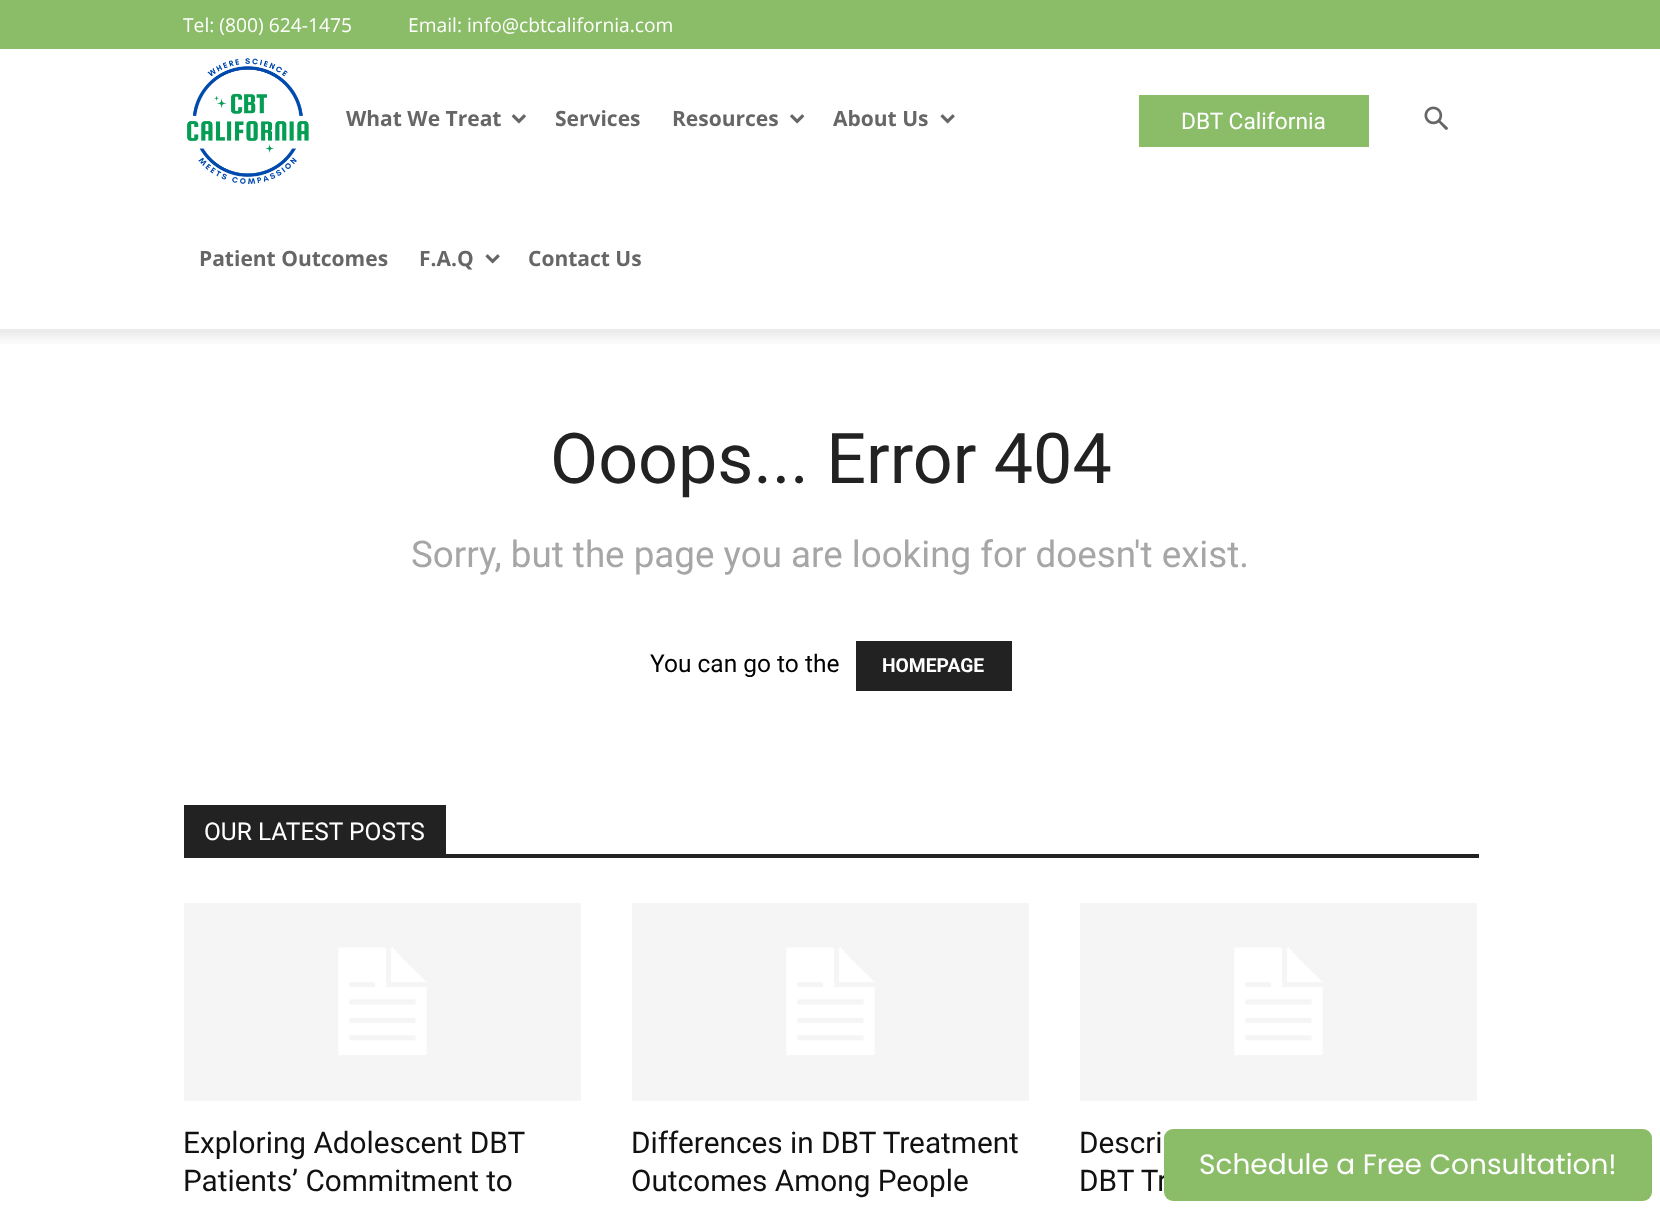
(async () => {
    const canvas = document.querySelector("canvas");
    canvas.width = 1660;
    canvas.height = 1218;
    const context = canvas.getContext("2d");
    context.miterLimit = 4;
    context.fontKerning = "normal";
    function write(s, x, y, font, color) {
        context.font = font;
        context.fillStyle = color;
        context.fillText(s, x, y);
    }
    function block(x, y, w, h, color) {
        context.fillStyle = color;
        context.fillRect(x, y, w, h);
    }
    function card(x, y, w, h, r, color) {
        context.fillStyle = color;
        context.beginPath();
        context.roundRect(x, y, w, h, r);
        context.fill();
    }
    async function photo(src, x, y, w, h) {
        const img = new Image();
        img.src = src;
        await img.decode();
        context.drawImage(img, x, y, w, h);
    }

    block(0, 0, 1660, 1218, "rgb(255, 255, 255)");
    block(0, 0, 1660, 49, "rgb(139, 188, 104)");
    write("Tel: (800) 624-1475", 183, 32, "19.25px Open Sans", "rgb(255, 255, 255)");
    write("Email: info@cbtcalifornia.com", 408, 32, "19.25px Open Sans", "rgb(255, 255, 255)");
    await photo("media/1.png", 187, 58, 122, 127);
    write("What We Treat", 346, 126, "bold 21px Open Sans", "rgb(102, 102, 102)");
    await photo("media/2.png", 511, 114, 15, 10);
    write("Services", 555, 126, "bold 21px Open Sans", "rgb(102, 102, 102)");
    write("Resources", 672, 126, "bold 21px Open Sans", "rgb(102, 102, 102)");
    await photo("media/3.png", 790, 114, 15, 10);
    write("About Us", 833, 126, "bold 21px Open Sans", "rgb(102, 102, 102)");
    await photo("media/4.png", 940, 114, 15, 10);
    write("Patient Outcomes", 199, 266, "bold 21px Open Sans", "rgb(102, 102, 102)");
    write("F.A.Q", 419, 266, "bold 21px Open Sans", "rgb(102, 102, 102)");
    await photo("media/4.png", 485, 254, 15, 10);
    write("Contact Us", 528, 266, "bold 21px Open Sans", "rgb(102, 102, 102)");
    block(1139, 95, 230, 52, "rgb(139, 188, 104)");
    write("DBT California", 1181, 129, "22.75px Roboto", "rgb(255, 255, 255)");
    await photo("media/5.png", 1424, 106, 24, 24);
    await photo("media/6.png", 0, 329, 1660, 15);
    write("Ooops... Error 404", 550, 483, "70px Roboto", "rgb(34, 34, 34)");
    write("Sorry, but the page you are looking for doesn't exist.", 411, 567, "36.75px Roboto", "rgb(166, 166, 166)");
    write("You can go to the", 650, 672, "24.5px Roboto", "rgb(0, 0, 0)");
    block(856, 641, 156, 50, "rgb(34, 34, 34)");
    write("HOMEPAGE", 882, 672, "bold 19.25px Roboto", "rgb(255, 255, 255)");
    block(184, 854, 1295, 4, "rgb(34, 34, 34)");
    block(184, 805, 262, 49, "rgb(34, 34, 34)");
    write("OUR LATEST POSTS", 204, 840, "24.5px Roboto", "rgb(255, 255, 255)");
    await photo("media/7.png", 184, 903, 397, 198);
    write("Exploring Adolescent DBT", 183, 1153, "29.75px Roboto", "rgb(17, 17, 17)");
    write("Patients’ Commitment to", 183, 1191, "29.75px Roboto", "rgb(17, 17, 17)");
    await photo("media/7.png", 632, 903, 397, 198);
    write("Differences in DBT Treatment", 631, 1153, "29.75px Roboto", "rgb(17, 17, 17)");
    write("Outcomes Among People", 631, 1191, "29.75px Roboto", "rgb(17, 17, 17)");
    await photo("media/7.png", 1080, 903, 397, 198);
    write("Descri", 1079, 1153, "29.75px Roboto", "rgb(17, 17, 17)");
    write("DBT Tr", 1079, 1191, "29.75px Roboto", "rgb(17, 17, 17)");
    card(1164, 1129, 488, 72, 9, "rgb(139, 188, 104)");
    write("Schedule a Free Consultation!", 1199, 1174, "28px Poppins", "rgb(255, 255, 255)");
})();
